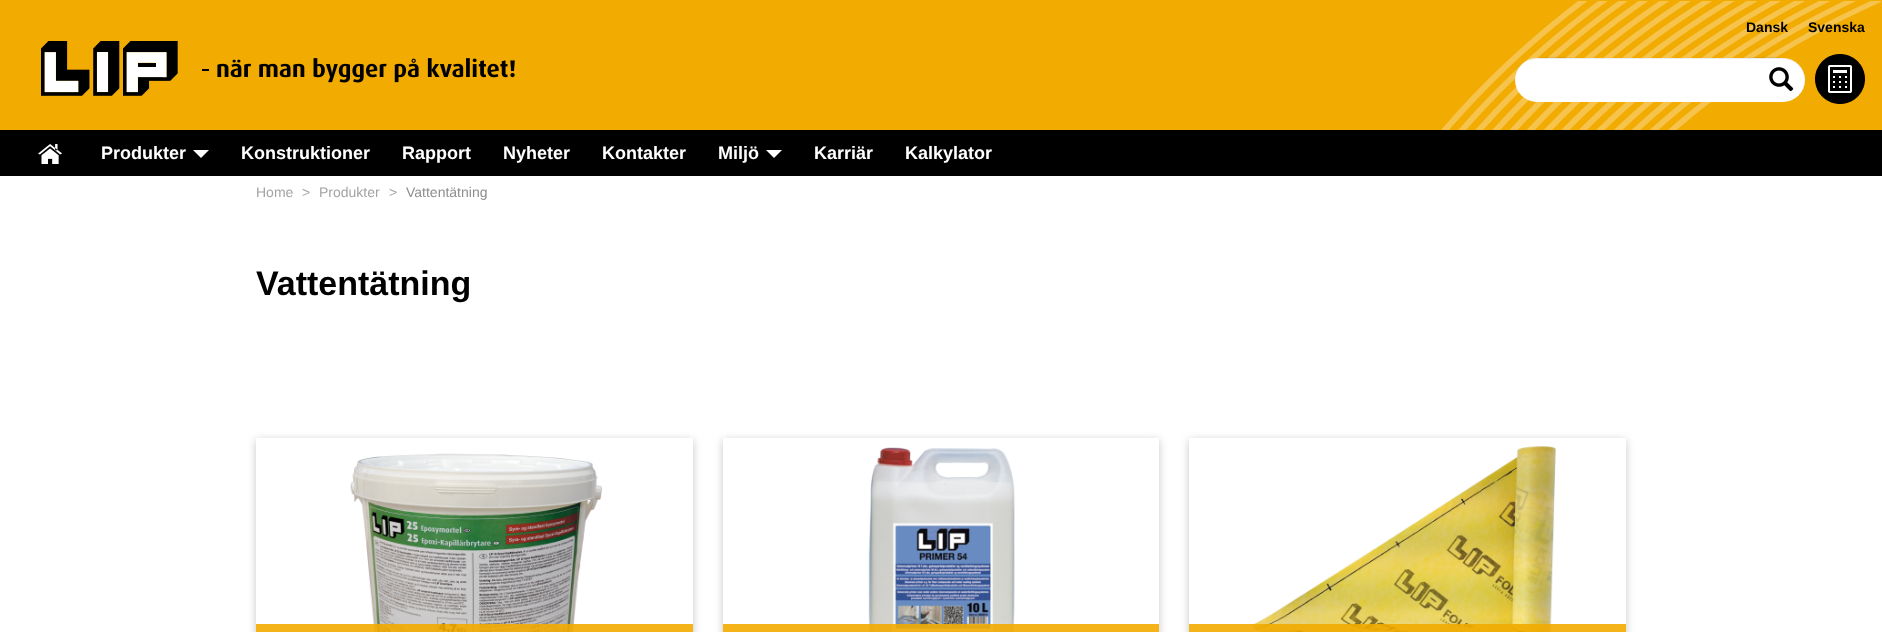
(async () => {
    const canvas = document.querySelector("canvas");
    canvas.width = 1882;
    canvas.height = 632;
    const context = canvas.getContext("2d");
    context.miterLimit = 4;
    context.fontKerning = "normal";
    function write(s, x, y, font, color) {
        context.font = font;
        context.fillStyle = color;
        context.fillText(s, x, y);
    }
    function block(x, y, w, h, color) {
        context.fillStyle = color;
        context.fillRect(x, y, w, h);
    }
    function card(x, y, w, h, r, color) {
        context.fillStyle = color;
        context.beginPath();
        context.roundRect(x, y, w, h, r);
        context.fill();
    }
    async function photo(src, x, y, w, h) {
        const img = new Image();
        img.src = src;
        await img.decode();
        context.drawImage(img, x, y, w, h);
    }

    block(0, 0, 1882, 632, "rgb(242, 171, 0)");
    await photo("media/1.png", 1441, 1, 440, 129);
    write("Dansk", 1746, 32, "bold 14px Liberation Sans", "rgb(0, 0, 0)");
    write("Svenska", 1808, 32, "bold 14px Liberation Sans", "rgb(0, 0, 0)");
    card(1515, 58, 290, 44, 22, "rgb(255, 255, 255)");
    context.fillStyle = "rgba(0, 0, 0, 0.07)";
    context.beginPath();
    context.moveTo(1537, 59);
    context.lineTo(1783, 59);
    context.bezierCurveTo(1795, 59, 1805, 69, 1805, 81);
    context.bezierCurveTo(1806, 49, 1758, 58, 1742, 58);
    context.lineTo(1578, 58);
    context.bezierCurveTo(1562, 58, 1514, 49, 1515, 81);
    context.bezierCurveTo(1515, 69, 1525, 59, 1537, 59);
    context.closePath();
    context.fill();
    await photo("media/2.png", 1769, 67, 25, 25);
    await photo("media/3.png", 1815, 54, 50, 50);
    block(0, 130, 1882, 46, "rgb(0, 0, 0)");
    await photo("media/4.png", 38, 144, 24, 20);
    write("Produkter", 101, 159, "bold 18px Liberation Sans", "rgb(255, 255, 255)");
    context.beginPath();
    context.moveTo(193, 150);
    context.lineTo(209, 150);
    context.lineTo(201, 158);
    context.closePath();
    context.fill();
    write("Konstruktioner", 241, 159, "bold 18px Liberation Sans", "rgb(255, 255, 255)");
    write("Rapport", 402, 159, "bold 18px Liberation Sans", "rgb(255, 255, 255)");
    write("Nyheter", 503, 159, "bold 18px Liberation Sans", "rgb(255, 255, 255)");
    write("Kontakter", 602, 159, "bold 18px Liberation Sans", "rgb(255, 255, 255)");
    write("Miljö", 718, 159, "bold 18px Liberation Sans", "rgb(255, 255, 255)");
    context.beginPath();
    context.moveTo(766, 150);
    context.lineTo(782, 150);
    context.lineTo(774, 158);
    context.closePath();
    context.fill();
    write("Karriär", 814, 159, "bold 18px Liberation Sans", "rgb(255, 255, 255)");
    write("Kalkylator", 905, 159, "bold 18px Liberation Sans", "rgb(255, 255, 255)");
    await photo("media/5.png", 41, 41, 474, 55);
    block(0, 176, 1882, 456, "rgb(255, 255, 255)");
    write("Home", 256, 197, "14px Liberation Sans", "rgb(164, 164, 164)");
    write(">", 302, 197, "14px Liberation Sans", "rgb(164, 164, 164)");
    write("Produkter", 319, 197, "14px Liberation Sans", "rgb(164, 164, 164)");
    write(">", 389, 197, "14px Liberation Sans", "rgb(164, 164, 164)");
    write("Vattentätning", 406, 197, "14px Liberation Sans", "rgb(142, 142, 142)");
    write("Vattentätning", 256, 295, "bold 34px Liberation Sans", "rgb(0, 0, 0)");
    context.save();
    context.beginPath();
    context.moveTo(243, 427);
    context.lineTo(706, 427);
    context.lineTo(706, 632);
    context.lineTo(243, 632);
    context.closePath();
    context.moveTo(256, 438);
    context.lineTo(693, 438);
    context.lineTo(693, 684);
    context.lineTo(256, 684);
    context.closePath();
    context.clip("evenodd");
    context.fillStyle = "rgba(0, 0, 0, 0.22)";
    context.filter = "blur(4px)";
    context.beginPath();
    context.rect(256, 440, 437, 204);
    context.fill();
    context.filter = "none";
    context.restore();
    await photo("media/6.png", 350, 453, 252, 179);
    block(256, 624, 437, 8, "rgba(242, 171, 0, 0.9)");
    context.save();
    context.beginPath();
    context.moveTo(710, 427);
    context.lineTo(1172, 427);
    context.lineTo(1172, 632);
    context.lineTo(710, 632);
    context.closePath();
    context.moveTo(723, 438);
    context.lineTo(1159, 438);
    context.lineTo(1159, 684);
    context.lineTo(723, 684);
    context.closePath();
    context.clip("evenodd");
    context.fillStyle = "rgba(0, 0, 0, 0.22)";
    context.filter = "blur(4px)";
    context.beginPath();
    context.rect(723, 440, 436, 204);
    context.fill();
    context.filter = "none";
    context.restore();
    await photo("media/7.png", 868, 447, 147, 185);
    block(723, 624, 436, 8, "rgba(242, 171, 0, 0.9)");
    context.save();
    context.beginPath();
    context.moveTo(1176, 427);
    context.lineTo(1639, 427);
    context.lineTo(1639, 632);
    context.lineTo(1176, 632);
    context.closePath();
    context.moveTo(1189, 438);
    context.lineTo(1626, 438);
    context.lineTo(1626, 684);
    context.lineTo(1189, 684);
    context.closePath();
    context.clip("evenodd");
    context.fillStyle = "rgba(0, 0, 0, 0.22)";
    context.filter = "blur(4px)";
    context.beginPath();
    context.rect(1189, 440, 437, 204);
    context.fill();
    context.filter = "none";
    context.restore();
    await photo("media/8.png", 1252, 446, 304, 186);
    block(1189, 624, 437, 8, "rgba(242, 171, 0, 0.9)");
})();
